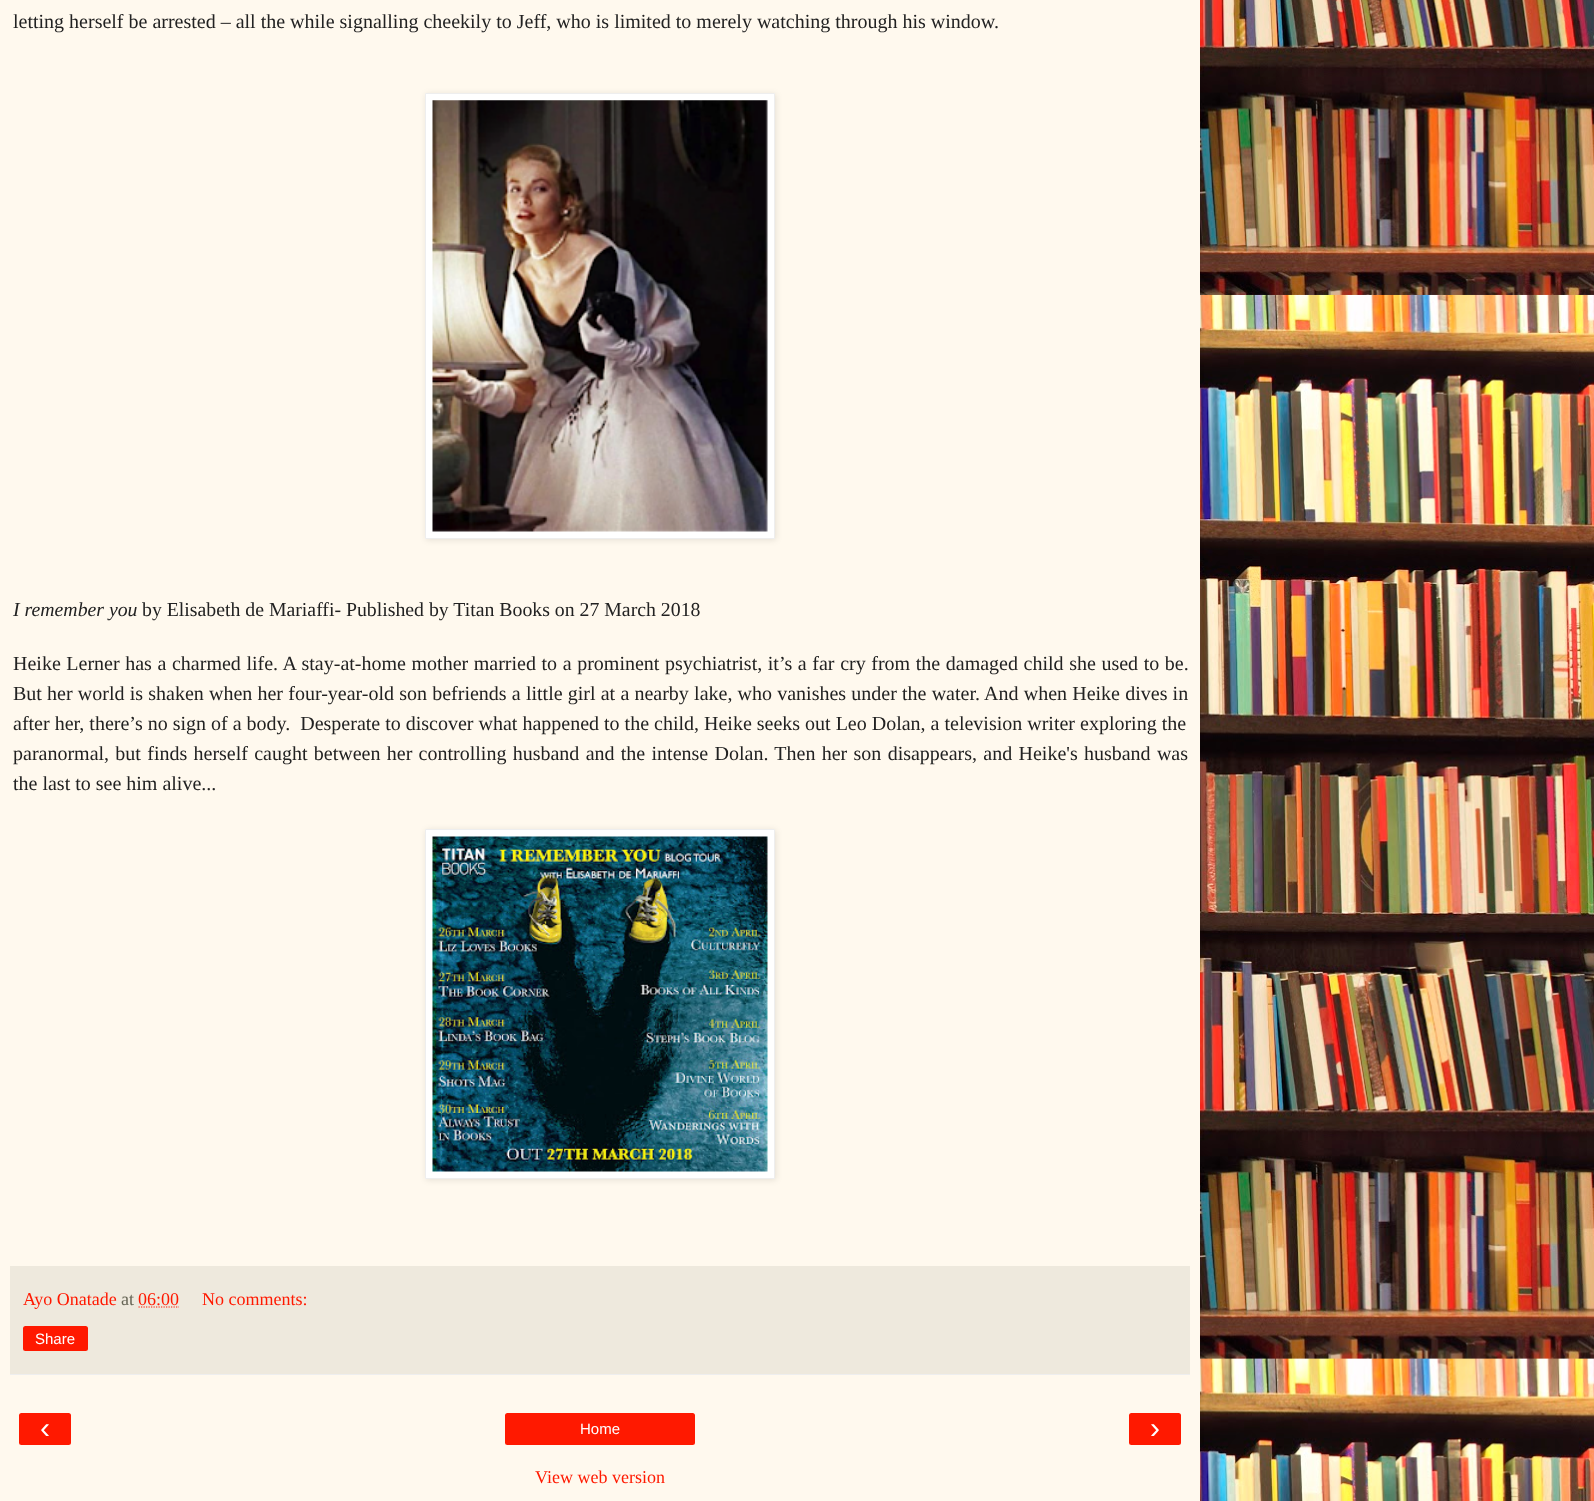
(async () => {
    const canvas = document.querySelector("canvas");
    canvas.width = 1594;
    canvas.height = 1501;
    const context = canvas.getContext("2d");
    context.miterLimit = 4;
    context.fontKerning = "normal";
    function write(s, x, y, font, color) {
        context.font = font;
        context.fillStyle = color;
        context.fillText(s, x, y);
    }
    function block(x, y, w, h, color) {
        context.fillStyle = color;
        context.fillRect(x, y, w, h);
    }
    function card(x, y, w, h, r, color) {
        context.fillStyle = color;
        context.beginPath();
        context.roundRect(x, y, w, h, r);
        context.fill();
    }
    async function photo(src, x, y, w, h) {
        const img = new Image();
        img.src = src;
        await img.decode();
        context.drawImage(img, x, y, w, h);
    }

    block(0, 0, 1594, 1501, "rgb(255, 255, 255)");
    await photo("media/1.png", 1200, 0, 394, 1501);
    context.fillStyle = "rgba(0, 0, 0, 0.15)";
    context.filter = "blur(2px)";
    context.beginPath();
    context.rect(0, -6, 1200, 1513);
    context.fill();
    context.filter = "none";
    block(0, 0, 1200, 1501, "rgb(255, 249, 238)");
    write("letting herself be arrested – all the while signalling cheekily to Jeff, who is limited to merely watching through his window.", 13, 28, "20px Liberation Serif", "rgb(34, 34, 34)");
    context.fillStyle = "rgba(0, 0, 0, 0.1)";
    context.filter = "blur(3px)";
    context.beginPath();
    context.rect(426, 94, 350, 446);
    context.fill();
    context.filter = "none";
    context.fillStyle = "rgb(255, 255, 255)";
    context.beginPath();
    context.rect(425.5, 93.5, 349, 445);
    context.fill();
    context.strokeStyle = "rgb(238, 238, 238)";
    context.stroke();
    await photo("media/2.png", 432, 100, 336, 432);
    write("I remember you", 13, 616, "italic 19.8px Liberation Serif", "rgb(34, 34, 34)");
    write("by Elisabeth de Mariaffi- Published by Titan Books on 27 March 2018", 142, 616, "19.8px Liberation Serif", "rgb(34, 34, 34)");
    context.wordSpacing = "0.6px";
    write("Heike Lerner has a charmed life. A stay-at-home mother married to a prominent psychiatrist, it’s a far cry from the damaged child she used to be.", 13, 670, "20px Liberation Serif", "rgb(34, 34, 34)");
    context.wordSpacing = "0.2px";
    write("But her world is shaken when her four-year-old son befriends a little girl at a nearby lake, who vanishes under the water. And when Heike dives in", 13, 700, "20px Liberation Serif", "rgb(34, 34, 34)");
    context.wordSpacing = "0px";
    write("after her, there’s no sign of a body.  Desperate to discover what happened to the child, Heike seeks out Leo Dolan, a television writer exploring the", 13, 730, "20px Liberation Serif", "rgb(34, 34, 34)");
    context.wordSpacing = "1.3px";
    write("paranormal, but finds herself caught between her controlling husband and the intense Dolan. Then her son disappears, and Heike's husband was", 13, 760, "20px Liberation Serif", "rgb(34, 34, 34)");
    context.wordSpacing = "0px";
    write("the last to see him alive...", 13, 790, "20px Liberation Serif", "rgb(34, 34, 34)");
    context.fillStyle = "rgba(0, 0, 0, 0.1)";
    context.filter = "blur(3px)";
    context.beginPath();
    context.rect(426, 830, 350, 350);
    context.fill();
    context.filter = "none";
    context.fillStyle = "rgb(255, 255, 255)";
    context.beginPath();
    context.rect(425.5, 829.5, 349, 349);
    context.fill();
    context.stroke();
    await photo("media/3.png", 432, 836, 336, 336);
    block(10, 1266, 1180, 108, "rgb(238, 233, 221)");
    block(10, 1374, 1180, 1, "rgb(238, 238, 238)");
    write("Ayo Onatade", 23, 1305, "18px Liberation Serif", "rgb(255, 25, 0)");
    write("at", 121, 1305, "18px Liberation Serif", "rgb(102, 101, 85)");
    write("06:00", 138, 1305, "18px Liberation Serif", "rgb(255, 25, 0)");
    context.beginPath();
    context.moveTo(138.5, 1307);
    context.lineTo(179, 1307);
    context.strokeStyle = "rgb(255, 25, 0)";
    context.lineWidth = 1.2;
    context.setLineDash([1.25, 1.25]);
    context.stroke();
    write("No comments:", 202, 1305, "18px Liberation Serif", "rgb(255, 25, 0)");
    card(23, 1326, 65, 25, 2.5, "rgb(255, 25, 0)");
    write("Share", 35, 1344, "15px Liberation Sans", "rgb(255, 255, 255)");
    card(19, 1413, 52, 32, 2.5, "rgb(255, 25, 0)");
    write("‹", 40, 1438, "30px Liberation Sans", "rgb(255, 255, 255)");
    card(505, 1413, 190, 32, 2.5, "rgb(255, 25, 0)");
    write("Home", 580, 1434, "15px Liberation Sans", "rgb(255, 255, 255)");
    card(1129, 1413, 52, 32, 2.5, "rgb(255, 25, 0)");
    write("›", 1150, 1438, "30px Liberation Sans", "rgb(255, 255, 255)");
    write("View web version", 535, 1483, "18px Liberation Serif", "rgb(255, 25, 0)");
})();
